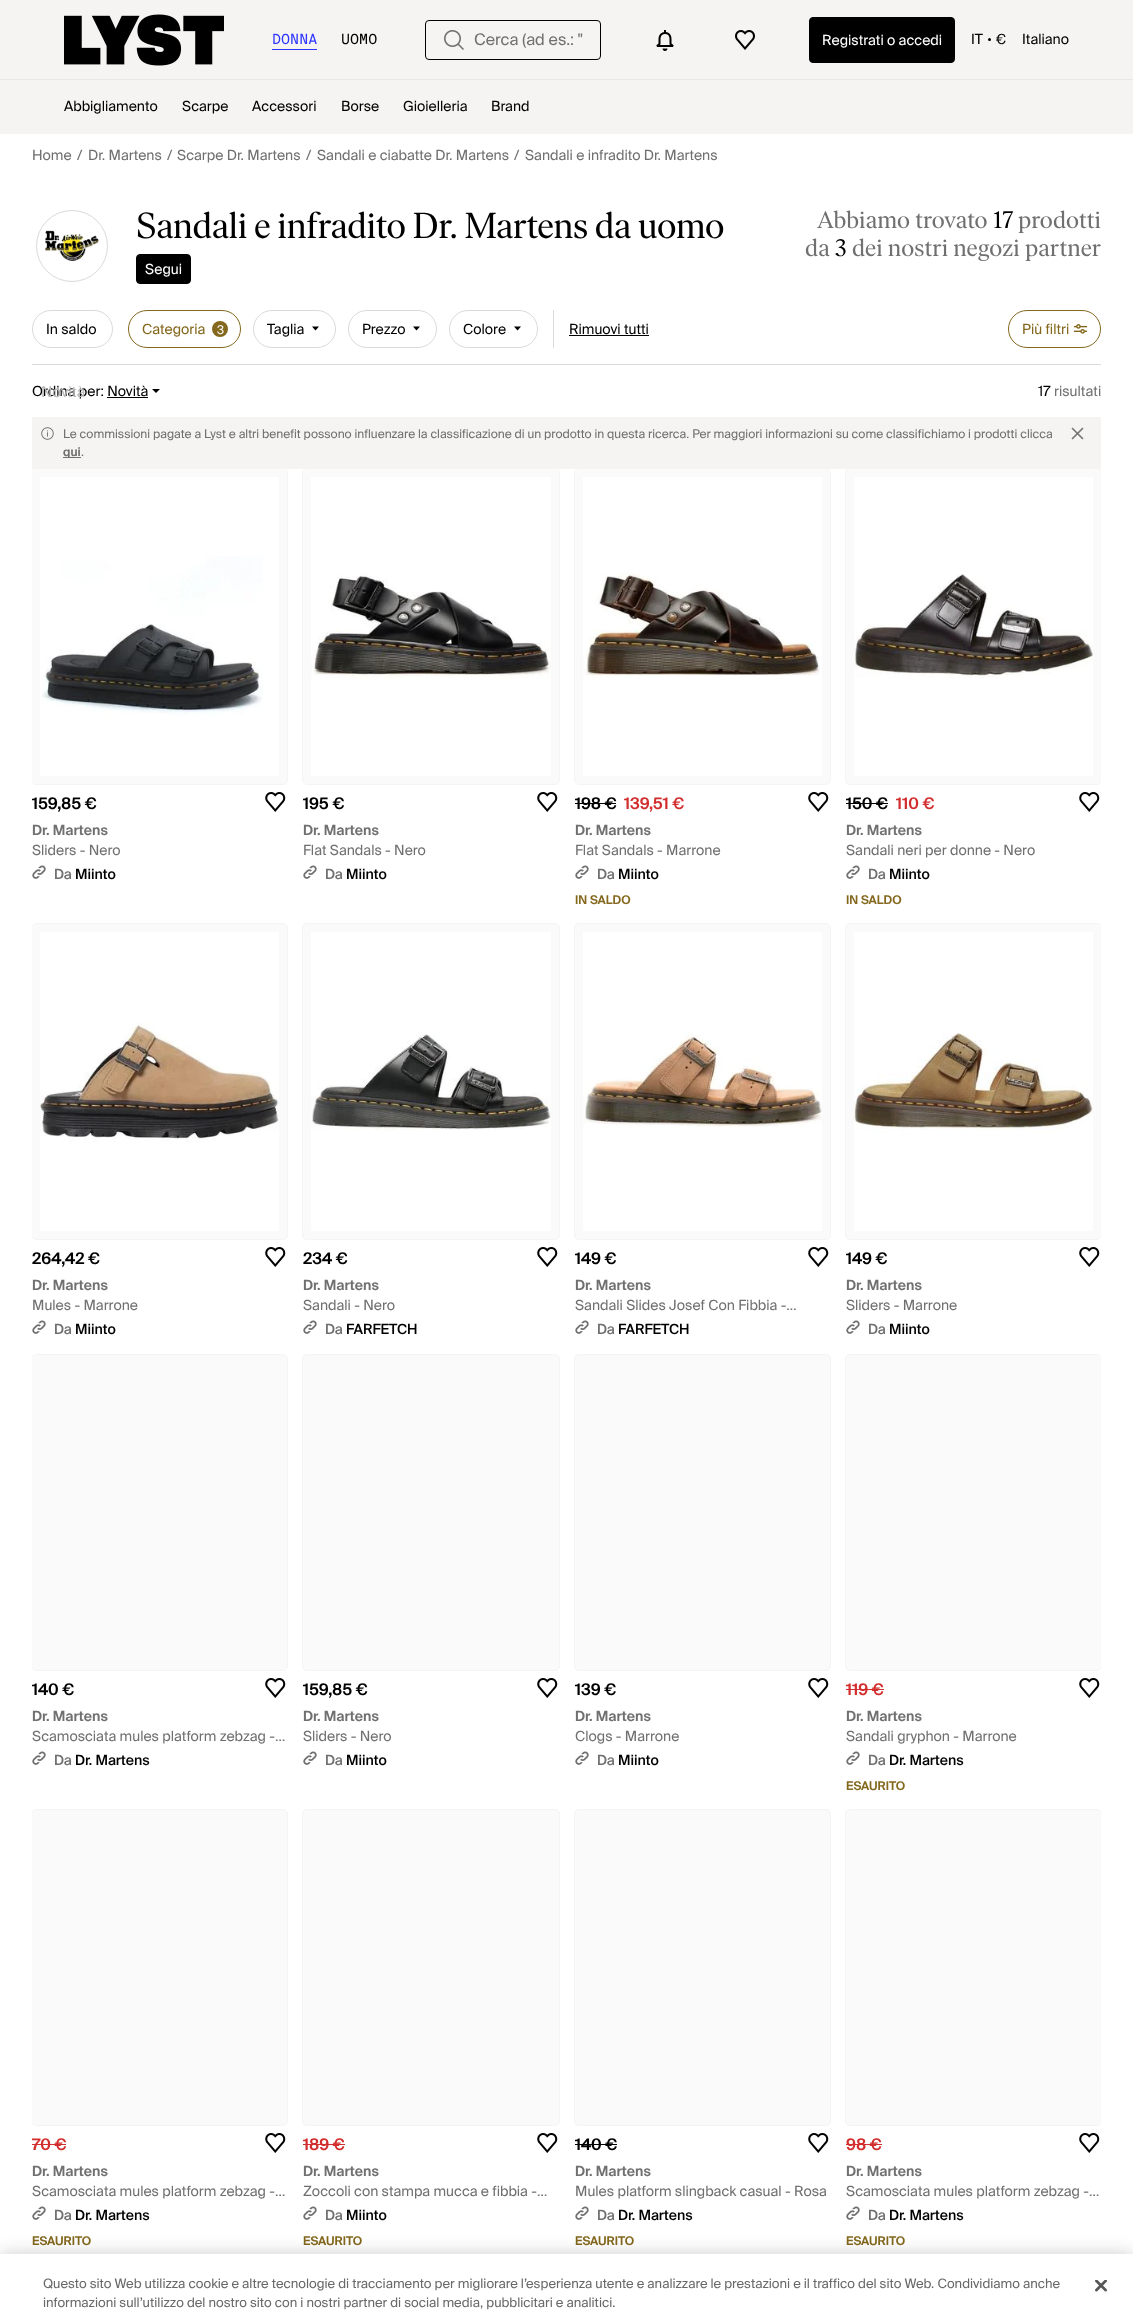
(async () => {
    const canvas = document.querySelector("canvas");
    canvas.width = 1133;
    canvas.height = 2323;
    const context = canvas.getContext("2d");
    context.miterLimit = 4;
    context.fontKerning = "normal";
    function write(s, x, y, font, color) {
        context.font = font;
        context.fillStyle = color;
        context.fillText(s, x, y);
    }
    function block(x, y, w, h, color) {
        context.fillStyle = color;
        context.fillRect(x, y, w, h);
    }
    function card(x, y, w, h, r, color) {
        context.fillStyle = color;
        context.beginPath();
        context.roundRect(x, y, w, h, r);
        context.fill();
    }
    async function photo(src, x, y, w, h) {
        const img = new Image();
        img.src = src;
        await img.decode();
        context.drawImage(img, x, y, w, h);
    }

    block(0, 0, 1133, 2323, "rgb(255, 255, 255)");
    block(0, 0, 1133, 134, "rgb(245, 244, 242)");
    block(0, 79, 1133, 1, "rgb(231, 231, 231)");
    await photo("media/1.png", 64, 14, 160, 52);
    block(272, 49, 45, 1, "rgb(45, 54, 255)");
    write("DONNA", 272, 44, "14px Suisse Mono", "rgb(45, 54, 255)");
    write("UOMO", 341, 44, "14px Suisse Mono", "rgb(0, 0, 0)");
    context.beginPath();
    context.roundRect(425.5, 20.5, 175, 39, 3.5);
    context.strokeStyle = "rgb(0, 0, 0)";
    context.stroke();
    await photo("media/2.png", 444, 30, 20, 20);
    write("Cerca (ad es.: \"", 474, 45, "16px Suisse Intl", "rgb(112, 112, 112)");
    await photo("media/3.png", 656, 30, 18, 21);
    await photo("media/4.png", 735, 30, 20, 20);
    context.fillStyle = "rgb(0, 0, 0)";
    context.beginPath();
    context.roundRect(809.5, 17.5, 145, 45, 3.5);
    context.fill();
    context.stroke();
    write("Registrati o accedi", 822, 45, "14px Suisse Intl", "rgb(255, 255, 255)");
    write("IT", 971, 44, "14px Suisse Intl", "rgb(0, 0, 0)");
    context.beginPath();
    context.arc(989.5, 39.5, 1.5, 0, Math.PI * 2);
    context.fill();
    write("€", 996, 44, "14px Suisse Intl", "rgb(0, 0, 0)");
    write("Italiano", 1022, 44, "14px Suisse Intl", "rgb(0, 0, 0)");
    write("Abbigliamento", 64, 111, "14px Suisse Intl", "rgb(0, 0, 0)");
    write("Scarpe", 182, 111, "14px Suisse Intl", "rgb(0, 0, 0)");
    write("Accessori", 252, 111, "14px Suisse Intl", "rgb(0, 0, 0)");
    write("Borse", 341, 111, "14px Suisse Intl", "rgb(0, 0, 0)");
    write("Gioielleria", 403, 111, "14px Suisse Intl", "rgb(0, 0, 0)");
    write("Brand", 491, 111, "14px Suisse Intl", "rgb(0, 0, 0)");
    write("Home", 32, 160, "14px Suisse Intl", "rgb(112, 112, 112)");
    write("/", 77, 160, "14px Suisse Intl", "rgb(112, 112, 112)");
    write("Dr. Martens", 88, 160, "14px Suisse Intl", "rgb(112, 112, 112)");
    write("/", 167, 160, "14px Suisse Intl", "rgb(112, 112, 112)");
    write("Scarpe Dr. Martens", 177, 160, "14px Suisse Intl", "rgb(112, 112, 112)");
    write("/", 306, 160, "14px Suisse Intl", "rgb(112, 112, 112)");
    write("Sandali e ciabatte Dr. Martens", 317, 160, "14px Suisse Intl", "rgb(112, 112, 112)");
    write("/", 514, 160, "14px Suisse Intl", "rgb(112, 112, 112)");
    write("Sandali e infradito Dr. Martens", 525, 160, "14px Suisse Intl", "rgb(112, 112, 112)");
    context.beginPath();
    context.arc(72, 246, 35.5, 0, Math.PI * 2);
    context.strokeStyle = "rgb(218, 218, 218)";
    context.stroke();
    await photo("media/5.png", 45, 230, 55, 31);
    context.letterSpacing = "-0.25px";
    write("Sandali e infradito Dr. Martens da uomo", 136, 238, "36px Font", "rgb(0, 0, 0)");
    context.beginPath();
    context.roundRect(136.5, 254.5, 54, 29, 3.5);
    context.fill();
    context.strokeStyle = "rgb(0, 0, 0)";
    context.stroke();
    context.letterSpacing = "0px";
    write("Segui", 145, 274, "14px Suisse Intl", "rgb(255, 255, 255)");
    context.letterSpacing = "0.2px";
    write("Abbiamo trovato", 817, 228, "24px Font", "rgb(112, 112, 112)");
    write("17", 993, 228, "24px Font", "rgb(0, 0, 0)");
    write("prodotti", 1018, 228, "24px Font", "rgb(112, 112, 112)");
    write("da", 805, 256, "24px Font", "rgb(112, 112, 112)");
    write("3", 835, 256, "24px Font", "rgb(0, 0, 0)");
    write("dei nostri negozi partner", 852, 256, "24px Font", "rgb(112, 112, 112)");
    block(32, 364, 1069, 1, "rgb(218, 218, 218)");
    context.beginPath();
    context.roundRect(32.5, 310.5, 80, 37, 18.5);
    context.strokeStyle = "rgb(218, 218, 218)";
    context.stroke();
    context.letterSpacing = "0px";
    write("In saldo", 46, 334, "14px Suisse Intl", "rgb(0, 0, 0)");
    block(553, 310, 1, 38, "rgb(218, 218, 218)");
    context.beginPath();
    context.roundRect(128.5, 310.5, 112, 37, 18.5);
    context.strokeStyle = "rgb(132, 104, 30)";
    context.stroke();
    write("Categoria", 142, 334, "14px Suisse Intl", "rgb(132, 104, 30)");
    context.beginPath();
    context.arc(220, 329, 8, 0, Math.PI * 2);
    context.fill();
    write("3", 217, 334, "12px Suisse Intl", "rgb(255, 255, 255)");
    context.beginPath();
    context.roundRect(253.5, 310.5, 82, 37, 18.5);
    context.strokeStyle = "rgb(218, 218, 218)";
    context.stroke();
    write("Taglia", 267, 334, "14px Suisse Intl", "rgb(0, 0, 0)");
    context.beginPath();
    context.moveTo(319, 326.5);
    context.lineTo(312, 326.5);
    context.lineTo(315.5, 330.5);
    context.closePath();
    context.fill("evenodd");
    context.beginPath();
    context.roundRect(348.5, 310.5, 88, 37, 18.5);
    context.stroke();
    write("Prezzo", 362, 334, "14px Suisse Intl", "rgb(0, 0, 0)");
    context.beginPath();
    context.moveTo(420, 326.5);
    context.lineTo(413, 326.5);
    context.lineTo(416.5, 330.5);
    context.closePath();
    context.fill("evenodd");
    context.beginPath();
    context.roundRect(449.5, 310.5, 88, 37, 18.5);
    context.stroke();
    write("Colore", 463, 334, "14px Suisse Intl", "rgb(0, 0, 0)");
    context.beginPath();
    context.moveTo(521, 326.5);
    context.lineTo(514, 326.5);
    context.lineTo(517.5, 330.5);
    context.closePath();
    context.fill("evenodd");
    write("Rimuovi tutti", 569, 334, "14px Suisse Intl", "rgb(0, 0, 0)");
    block(569, 335, 80, 1, "rgb(0, 0, 0)");
    context.beginPath();
    context.roundRect(1008.5, 310.5, 92, 37, 18.5);
    context.strokeStyle = "rgb(132, 104, 30)";
    context.stroke();
    write("Più filtri", 1022, 334, "14px Suisse Intl", "rgb(132, 104, 30)");
    await photo("media/6.png", 1073, 324, 15, 10);
    write("Ordina per: Novità", 32, 396, "14px Suisse Intl", "rgb(0, 0, 0)");
    block(107, 397, 41, 1, "rgb(0, 0, 0)");
    write("Novità", 41, 397, "15px Suisse Intl", "rgb(185, 185, 185)");
    context.fillStyle = "rgb(0, 0, 0)";
    context.beginPath();
    context.moveTo(152, 389);
    context.lineTo(160, 389);
    context.lineTo(156, 393);
    context.closePath();
    context.fill();
    write("17", 1038, 396, "14px Suisse Intl", "rgb(0, 0, 0)");
    write("risultati", 1054, 396, "14px Suisse Intl", "rgb(112, 112, 112)");
    block(32, 417, 1069, 52, "rgb(245, 244, 242)");
    await photo("media/7.png", 41, 427, 13, 13);
    write("Le commissioni pagate a Lyst e altri benefit possono influenzare la classificazione di un prodotto in questa ricerca. Per maggiori informazioni su come classifichiamo i prodotti clicca", 63, 438, "12px Suisse Intl", "rgb(112, 112, 112)");
    block(63, 457, 18, 1, "rgb(112, 112, 112)");
    write("qui", 63, 456, "600 12px Suisse Intl", "rgb(112, 112, 112)");
    write(".", 81, 456, "12px Suisse Intl", "rgb(112, 112, 112)");
    await photo("media/8.png", 1071, 427, 13, 13);
    card(32, 469, 255, 315, 4, "rgb(251, 250, 250)");
    block(40, 477, 239, 299, "rgb(255, 255, 255)");
    await photo("media/9.png", 41, 556, 222, 160);
    context.save();
    context.beginPath();
    context.rect(32, 469, 1069, 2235);
    context.clip();
    context.beginPath();
    context.roundRect(31.5, 468.5, 256, 316, 4.5);
    context.strokeStyle = "rgb(245, 244, 242)";
    context.stroke();
    context.restore();
    write("159,85 €", 32, 809, "600 16px Suisse Intl", "rgb(0, 0, 0)");
    await photo("media/10.png", 265, 792, 21, 20);
    write("Dr. Martens", 32, 835, "600 14px Suisse Intl", "rgb(112, 112, 112)");
    write("Sliders - Nero", 32, 855, "14px Suisse Intl", "rgb(112, 112, 112)");
    await photo("media/11.png", 32, 865, 14, 14);
    write("Da", 54, 879, "500 14px Suisse Intl", "rgb(112, 112, 112)");
    write("Miinto", 75, 879, "500 14px Suisse Intl", "rgb(0, 0, 0)");
    card(303, 469, 256, 315, 4, "rgb(251, 250, 250)");
    block(311, 477, 240, 299, "rgb(255, 255, 255)");
    await photo("media/12.png", 311, 573, 240, 107);
    context.save();
    context.beginPath();
    context.rect(32, 469, 1069, 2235);
    context.clip();
    context.beginPath();
    context.roundRect(302.5, 468.5, 257, 316, 4.5);
    context.strokeStyle = "rgb(245, 244, 242)";
    context.stroke();
    context.restore();
    write("195 €", 303, 809, "600 16px Suisse Intl", "rgb(0, 0, 0)");
    await photo("media/10.png", 537, 792, 21, 20);
    write("Dr. Martens", 303, 835, "600 14px Suisse Intl", "rgb(112, 112, 112)");
    write("Flat Sandals - Nero", 303, 855, "14px Suisse Intl", "rgb(112, 112, 112)");
    await photo("media/11.png", 303, 865, 14, 14);
    write("Da", 325, 879, "500 14px Suisse Intl", "rgb(112, 112, 112)");
    write("Miinto", 346, 879, "500 14px Suisse Intl", "rgb(0, 0, 0)");
    card(575, 469, 255, 315, 4, "rgb(251, 250, 250)");
    block(583, 477, 239, 299, "rgb(255, 255, 255)");
    await photo("media/13.png", 583, 573, 237, 103);
    context.save();
    context.beginPath();
    context.rect(32, 469, 1069, 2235);
    context.clip();
    context.beginPath();
    context.roundRect(574.5, 468.5, 256, 316, 4.5);
    context.strokeStyle = "rgb(245, 244, 242)";
    context.stroke();
    context.restore();
    write("198 €", 575, 809, "600 16px Suisse Intl", "rgb(0, 0, 0)");
    block(575, 803, 41, 1, "rgb(0, 0, 0)");
    write("139,51 €", 624, 809, "600 16px Suisse Intl", "rgb(211, 46, 46)");
    await photo("media/10.png", 808, 792, 21, 20);
    write("Dr. Martens", 575, 835, "600 14px Suisse Intl", "rgb(112, 112, 112)");
    write("Flat Sandals - Marrone", 575, 855, "14px Suisse Intl", "rgb(112, 112, 112)");
    await photo("media/11.png", 575, 865, 14, 14);
    write("Da", 597, 879, "500 14px Suisse Intl", "rgb(112, 112, 112)");
    write("Miinto", 618, 879, "500 14px Suisse Intl", "rgb(0, 0, 0)");
    write("IN SALDO", 575, 904, "600 12px Suisse Intl", "rgb(132, 104, 30)");
    card(846, 469, 255, 315, 4, "rgb(251, 250, 250)");
    block(854, 477, 239, 299, "rgb(255, 255, 255)");
    await photo("media/14.png", 854, 574, 239, 104);
    context.save();
    context.beginPath();
    context.rect(32, 469, 1069, 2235);
    context.clip();
    context.beginPath();
    context.roundRect(845.5, 468.5, 256, 316, 4.5);
    context.strokeStyle = "rgb(245, 244, 242)";
    context.stroke();
    context.restore();
    write("150 €", 846, 809, "600 16px Suisse Intl", "rgb(0, 0, 0)");
    block(846, 803, 42, 1, "rgb(0, 0, 0)");
    write("110 €", 896, 809, "600 16px Suisse Intl", "rgb(211, 46, 46)");
    await photo("media/10.png", 1079, 792, 21, 20);
    write("Dr. Martens", 846, 835, "600 14px Suisse Intl", "rgb(112, 112, 112)");
    write("Sandali neri per donne - Nero", 846, 855, "14px Suisse Intl", "rgb(112, 112, 112)");
    await photo("media/11.png", 846, 865, 14, 14);
    write("Da", 868, 879, "500 14px Suisse Intl", "rgb(112, 112, 112)");
    write("Miinto", 889, 879, "500 14px Suisse Intl", "rgb(0, 0, 0)");
    write("IN SALDO", 846, 904, "600 12px Suisse Intl", "rgb(132, 104, 30)");
    card(32, 924, 255, 315, 4, "rgb(251, 250, 250)");
    block(40, 932, 239, 299, "rgb(255, 255, 255)");
    await photo("media/15.png", 40, 1021, 239, 121);
    context.save();
    context.beginPath();
    context.rect(32, 469, 1069, 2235);
    context.clip();
    context.beginPath();
    context.roundRect(31.5, 923.5, 256, 316, 4.5);
    context.strokeStyle = "rgb(245, 244, 242)";
    context.stroke();
    context.restore();
    write("264,42 €", 32, 1264, "600 16px Suisse Intl", "rgb(0, 0, 0)");
    await photo("media/10.png", 265, 1247, 21, 20);
    write("Dr. Martens", 32, 1290, "600 14px Suisse Intl", "rgb(112, 112, 112)");
    write("Mules - Marrone", 32, 1310, "14px Suisse Intl", "rgb(112, 112, 112)");
    await photo("media/11.png", 32, 1320, 14, 14);
    write("Da", 54, 1334, "500 14px Suisse Intl", "rgb(112, 112, 112)");
    write("Miinto", 75, 1334, "500 14px Suisse Intl", "rgb(0, 0, 0)");
    card(303, 924, 256, 315, 4, "rgb(251, 250, 250)");
    block(311, 932, 240, 299, "rgb(255, 255, 255)");
    await photo("media/16.png", 311, 1034, 240, 96);
    context.beginPath();
    context.roundRect(302.5, 923.5, 257, 316, 4.5);
    context.strokeStyle = "rgb(245, 244, 242)";
    context.stroke();
    write("234 €", 303, 1264, "600 16px Suisse Intl", "rgb(0, 0, 0)");
    await photo("media/10.png", 537, 1247, 21, 20);
    write("Dr. Martens", 303, 1290, "600 14px Suisse Intl", "rgb(112, 112, 112)");
    write("Sandali - Nero", 303, 1310, "14px Suisse Intl", "rgb(112, 112, 112)");
    await photo("media/11.png", 303, 1320, 14, 14);
    write("Da", 325, 1334, "500 14px Suisse Intl", "rgb(112, 112, 112)");
    write("FARFETCH", 346, 1334, "500 14px Suisse Intl", "rgb(0, 0, 0)");
    card(575, 924, 255, 315, 4, "rgb(251, 250, 250)");
    block(583, 932, 239, 299, "rgb(255, 255, 255)");
    await photo("media/17.png", 583, 1034, 239, 93);
    context.beginPath();
    context.roundRect(574.5, 923.5, 256, 316, 4.5);
    context.stroke();
    write("149 €", 575, 1264, "600 16px Suisse Intl", "rgb(0, 0, 0)");
    await photo("media/10.png", 808, 1247, 21, 20);
    write("Dr. Martens", 575, 1290, "600 14px Suisse Intl", "rgb(112, 112, 112)");
    write("Sandali Slides Josef Con Fibbia -…", 575, 1310, "14px Suisse Intl", "rgb(112, 112, 112)");
    await photo("media/11.png", 575, 1320, 14, 14);
    write("Da", 597, 1334, "500 14px Suisse Intl", "rgb(112, 112, 112)");
    write("FARFETCH", 618, 1334, "500 14px Suisse Intl", "rgb(0, 0, 0)");
    card(846, 924, 255, 315, 4, "rgb(251, 250, 250)");
    block(854, 932, 239, 299, "rgb(255, 255, 255)");
    await photo("media/18.png", 854, 1032, 239, 101);
    context.save();
    context.beginPath();
    context.rect(32, 469, 1069, 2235);
    context.clip();
    context.beginPath();
    context.roundRect(845.5, 923.5, 256, 316, 4.5);
    context.stroke();
    context.restore();
    write("149 €", 846, 1264, "600 16px Suisse Intl", "rgb(0, 0, 0)");
    await photo("media/10.png", 1079, 1247, 21, 20);
    write("Dr. Martens", 846, 1290, "600 14px Suisse Intl", "rgb(112, 112, 112)");
    write("Sliders - Marrone", 846, 1310, "14px Suisse Intl", "rgb(112, 112, 112)");
    await photo("media/11.png", 846, 1320, 14, 14);
    write("Da", 868, 1334, "500 14px Suisse Intl", "rgb(112, 112, 112)");
    write("Miinto", 889, 1334, "500 14px Suisse Intl", "rgb(0, 0, 0)");
    card(32, 1355, 255, 315, 4, "rgb(251, 250, 250)");
    context.save();
    context.beginPath();
    context.rect(32, 469, 1069, 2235);
    context.clip();
    context.beginPath();
    context.roundRect(31.5, 1354.5, 256, 316, 4.5);
    context.stroke();
    context.restore();
    write("140 €", 32, 1695, "600 16px Suisse Intl", "rgb(0, 0, 0)");
    await photo("media/10.png", 265, 1678, 21, 20);
    write("Dr. Martens", 32, 1721, "600 14px Suisse Intl", "rgb(112, 112, 112)");
    write("Scamosciata mules platform zebzag -…", 32, 1741, "14px Suisse Intl", "rgb(112, 112, 112)");
    await photo("media/11.png", 32, 1751, 14, 14);
    write("Da", 54, 1765, "500 14px Suisse Intl", "rgb(112, 112, 112)");
    write("Dr. Martens", 75, 1765, "500 14px Suisse Intl", "rgb(0, 0, 0)");
    context.fillStyle = "rgb(251, 250, 250)";
    context.beginPath();
    context.roundRect(302.5, 1354.5, 257, 316, 4.5);
    context.fill();
    context.stroke();
    write("159,85 €", 303, 1695, "600 16px Suisse Intl", "rgb(0, 0, 0)");
    await photo("media/10.png", 537, 1678, 21, 20);
    write("Dr. Martens", 303, 1721, "600 14px Suisse Intl", "rgb(112, 112, 112)");
    write("Sliders - Nero", 303, 1741, "14px Suisse Intl", "rgb(112, 112, 112)");
    await photo("media/11.png", 303, 1751, 14, 14);
    write("Da", 325, 1765, "500 14px Suisse Intl", "rgb(112, 112, 112)");
    write("Miinto", 346, 1765, "500 14px Suisse Intl", "rgb(0, 0, 0)");
    context.fillStyle = "rgb(251, 250, 250)";
    context.beginPath();
    context.roundRect(574.5, 1354.5, 256, 316, 4.5);
    context.fill();
    context.stroke();
    write("139 €", 575, 1695, "600 16px Suisse Intl", "rgb(0, 0, 0)");
    await photo("media/10.png", 808, 1678, 21, 20);
    write("Dr. Martens", 575, 1721, "600 14px Suisse Intl", "rgb(112, 112, 112)");
    write("Clogs - Marrone", 575, 1741, "14px Suisse Intl", "rgb(112, 112, 112)");
    await photo("media/11.png", 575, 1751, 14, 14);
    write("Da", 597, 1765, "500 14px Suisse Intl", "rgb(112, 112, 112)");
    write("Miinto", 618, 1765, "500 14px Suisse Intl", "rgb(0, 0, 0)");
    card(846, 1355, 255, 315, 4, "rgb(251, 250, 250)");
    context.save();
    context.beginPath();
    context.rect(32, 469, 1069, 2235);
    context.clip();
    context.beginPath();
    context.roundRect(845.5, 1354.5, 256, 316, 4.5);
    context.stroke();
    context.restore();
    write("119 €", 846, 1695, "600 16px Suisse Intl", "rgb(211, 46, 46)");
    block(846, 1689, 38, 1, "rgb(211, 46, 46)");
    await photo("media/10.png", 1079, 1678, 21, 20);
    write("Dr. Martens", 846, 1721, "600 14px Suisse Intl", "rgb(112, 112, 112)");
    write("Sandali gryphon - Marrone", 846, 1741, "14px Suisse Intl", "rgb(112, 112, 112)");
    await photo("media/11.png", 846, 1751, 14, 14);
    write("Da", 868, 1765, "500 14px Suisse Intl", "rgb(112, 112, 112)");
    write("Dr. Martens", 889, 1765, "500 14px Suisse Intl", "rgb(0, 0, 0)");
    write("ESAURITO", 846, 1790, "600 12px Suisse Intl", "rgb(132, 104, 30)");
    card(32, 1810, 255, 315, 4, "rgb(251, 250, 250)");
    context.save();
    context.beginPath();
    context.rect(32, 469, 1069, 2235);
    context.clip();
    context.beginPath();
    context.roundRect(31.5, 1809.5, 256, 316, 4.5);
    context.stroke();
    context.restore();
    write("70 €", 32, 2150, "600 16px Suisse Intl", "rgb(211, 46, 46)");
    block(32, 2144, 34, 1, "rgb(211, 46, 46)");
    await photo("media/10.png", 265, 2133, 21, 20);
    write("Dr. Martens", 32, 2176, "600 14px Suisse Intl", "rgb(112, 112, 112)");
    write("Scamosciata mules platform zebzag -…", 32, 2196, "14px Suisse Intl", "rgb(112, 112, 112)");
    await photo("media/11.png", 32, 2206, 14, 14);
    write("Da", 54, 2220, "500 14px Suisse Intl", "rgb(112, 112, 112)");
    write("Dr. Martens", 75, 2220, "500 14px Suisse Intl", "rgb(0, 0, 0)");
    write("ESAURITO", 32, 2245, "600 12px Suisse Intl", "rgb(132, 104, 30)");
    context.fillStyle = "rgb(251, 250, 250)";
    context.beginPath();
    context.roundRect(302.5, 1809.5, 257, 316, 4.5);
    context.fill();
    context.stroke();
    write("189 €", 303, 2150, "600 16px Suisse Intl", "rgb(211, 46, 46)");
    block(303, 2144, 42, 1, "rgb(211, 46, 46)");
    await photo("media/10.png", 537, 2133, 21, 20);
    write("Dr. Martens", 303, 2176, "600 14px Suisse Intl", "rgb(112, 112, 112)");
    write("Zoccoli con stampa mucca e fibbia -…", 303, 2196, "14px Suisse Intl", "rgb(112, 112, 112)");
    await photo("media/11.png", 303, 2206, 14, 14);
    write("Da", 325, 2220, "500 14px Suisse Intl", "rgb(112, 112, 112)");
    write("Miinto", 346, 2220, "500 14px Suisse Intl", "rgb(0, 0, 0)");
    write("ESAURITO", 303, 2245, "600 12px Suisse Intl", "rgb(132, 104, 30)");
    context.fillStyle = "rgb(251, 250, 250)";
    context.beginPath();
    context.roundRect(574.5, 1809.5, 256, 316, 4.5);
    context.fill();
    context.stroke();
    write("140 €", 575, 2150, "600 16px Suisse Intl", "rgb(0, 0, 0)");
    block(575, 2144, 42, 1, "rgb(0, 0, 0)");
    await photo("media/10.png", 808, 2133, 21, 20);
    write("Dr. Martens", 575, 2176, "600 14px Suisse Intl", "rgb(112, 112, 112)");
    write("Mules platform slingback casual - Rosa", 575, 2196, "14px Suisse Intl", "rgb(112, 112, 112)");
    await photo("media/11.png", 575, 2206, 14, 14);
    write("Da", 597, 2220, "500 14px Suisse Intl", "rgb(112, 112, 112)");
    write("Dr. Martens", 618, 2220, "500 14px Suisse Intl", "rgb(0, 0, 0)");
    write("ESAURITO", 575, 2245, "600 12px Suisse Intl", "rgb(132, 104, 30)");
    card(846, 1810, 255, 315, 4, "rgb(251, 250, 250)");
    context.save();
    context.beginPath();
    context.rect(32, 469, 1069, 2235);
    context.clip();
    context.beginPath();
    context.roundRect(845.5, 1809.5, 256, 316, 4.5);
    context.stroke();
    context.restore();
    write("98 €", 846, 2150, "600 16px Suisse Intl", "rgb(211, 46, 46)");
    block(846, 2144, 36, 1, "rgb(211, 46, 46)");
    await photo("media/10.png", 1079, 2133, 21, 20);
    write("Dr. Martens", 846, 2176, "600 14px Suisse Intl", "rgb(112, 112, 112)");
    write("Scamosciata mules platform zebzag -…", 846, 2196, "14px Suisse Intl", "rgb(112, 112, 112)");
    await photo("media/11.png", 846, 2206, 14, 14);
    write("Da", 868, 2220, "500 14px Suisse Intl", "rgb(112, 112, 112)");
    write("Dr. Martens", 889, 2220, "500 14px Suisse Intl", "rgb(0, 0, 0)");
    write("ESAURITO", 846, 2245, "600 12px Suisse Intl", "rgb(132, 104, 30)");
    context.fillStyle = "rgba(0, 0, 0, 0.2)";
    context.filter = "blur(9px)";
    context.beginPath();
    context.rect(0, 2254, 1133, 69);
    context.fill();
    context.filter = "none";
    block(0, 2254, 1133, 69, "rgb(255, 255, 255)");
    write("Questo sito Web utilizza cookie e altre tecnologie di tracciamento per migliorare l’esperienza utente e analizzare le prestazioni e il traffico del sito Web. Condividiamo anche", 43, 2288, "13px Suisse Intl", "rgb(105, 105, 105)");
    write("informazioni sull’utilizzo del nostro sito con i nostri partner di social media, pubblicitari e analitici.", 43, 2307, "13px Suisse Intl", "rgb(105, 105, 105)");
    await photo("media/19.png", 1095, 2280, 12, 12);
})();
